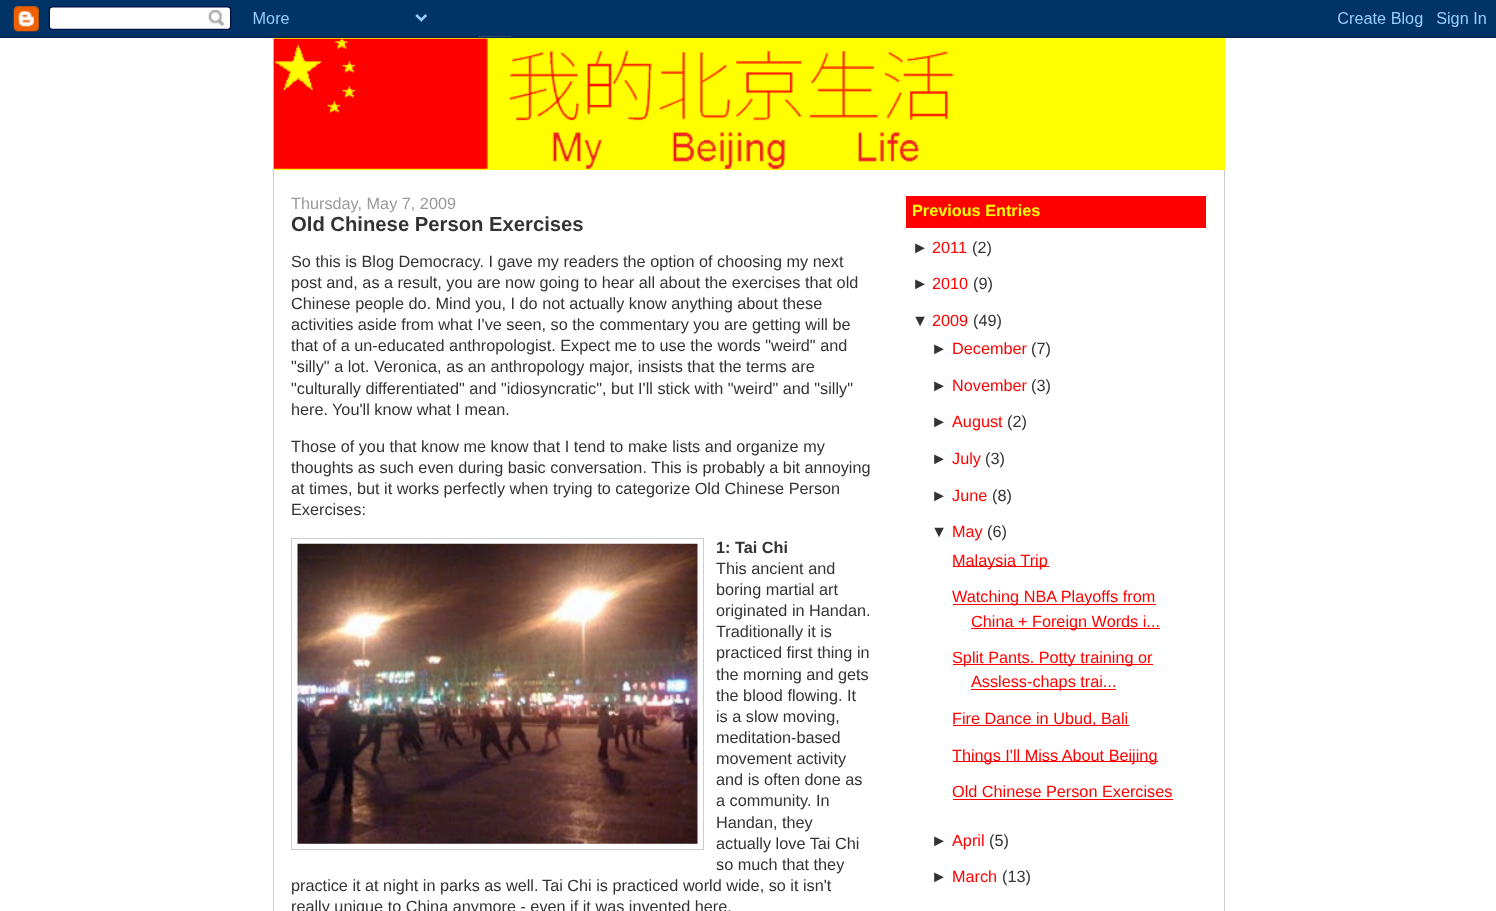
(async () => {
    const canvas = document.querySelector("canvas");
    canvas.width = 1496;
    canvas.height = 911;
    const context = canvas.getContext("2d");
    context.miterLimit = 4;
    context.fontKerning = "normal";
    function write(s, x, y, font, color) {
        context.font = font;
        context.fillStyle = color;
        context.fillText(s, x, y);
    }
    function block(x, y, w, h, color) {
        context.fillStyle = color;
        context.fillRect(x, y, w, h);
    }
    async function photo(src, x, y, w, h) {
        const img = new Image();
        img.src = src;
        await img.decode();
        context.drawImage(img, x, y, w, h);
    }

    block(0, 0, 1496, 911, "rgb(255, 255, 255)");
    await photo("media/1.png", 0, 0, 1496, 38);
    block(273, 38, 952, 132, "rgb(255, 255, 0)");
    await photo("media/2.png", 273, 38, 681, 131);
    block(1224, 170, 1, 741, "rgb(204, 204, 204)");
    block(273, 170, 1, 741, "rgb(204, 204, 204)");
    write("Thursday, May 7, 2009", 291, 209, "16.25px Liberation Sans", "rgb(153, 153, 153)");
    write("Old Chinese Person Exercises", 291, 231, "bold 20.25px Liberation Sans", "rgb(51, 51, 51)");
    write("So this is Blog Democracy. I gave my readers the option of choosing my next", 291, 267, "16.25px Liberation Sans", "rgb(51, 51, 51)");
    write("post and, as a result, you are now going to hear all about the exercises that old", 291, 288, "16.25px Liberation Sans", "rgb(51, 51, 51)");
    write("Chinese people do. Mind you, I do not actually know anything about these", 291, 309, "16.25px Liberation Sans", "rgb(51, 51, 51)");
    write("activities aside from what I've seen, so the commentary you are getting will be", 291, 330, "16.25px Liberation Sans", "rgb(51, 51, 51)");
    write("that of a un-educated anthropologist. Expect me to use the words \"weird\" and", 291, 351, "16.25px Liberation Sans", "rgb(51, 51, 51)");
    write("\"silly\" a lot. Veronica, as an anthropology major, insists that the terms are", 291, 372, "16.25px Liberation Sans", "rgb(51, 51, 51)");
    write("\"culturally differentiated\" and \"idiosyncratic\", but I'll stick with \"weird\" and \"silly\"", 291, 394, "16.25px Liberation Sans", "rgb(51, 51, 51)");
    write("here.", 291, 415, "16.25px Liberation Sans", "rgb(51, 51, 51)");
    write("You'll know what I mean.", 332, 415, "16.25px Liberation Sans", "rgb(51, 51, 51)");
    write("Those of you that know me know that I tend to make lists and organize my", 291, 452, "16.25px Liberation Sans", "rgb(51, 51, 51)");
    write("thoughts as such even during basic conversation.", 291, 473, "16.25px Liberation Sans", "rgb(51, 51, 51)");
    write("This is probably a bit annoying", 651, 473, "16.25px Liberation Sans", "rgb(51, 51, 51)");
    write("at times, but it works perfectly when trying to categorize Old Chinese Person", 291, 494, "16.25px Liberation Sans", "rgb(51, 51, 51)");
    write("Exercises:", 291, 515, "16.25px Liberation Sans", "rgb(51, 51, 51)");
    context.strokeStyle = "rgb(204, 204, 204)";
    context.strokeRect(291.5, 538.5, 412, 311);
    await photo("media/3.png", 297, 543, 401, 301);
    write("1: Tai Chi", 716, 553, "bold 16.25px Liberation Sans", "rgb(51, 51, 51)");
    write("This ancient and", 716, 574, "16.25px Liberation Sans", "rgb(51, 51, 51)");
    write("boring martial art", 716, 595, "16.25px Liberation Sans", "rgb(51, 51, 51)");
    write("originated in Handan.", 716, 616, "16.25px Liberation Sans", "rgb(51, 51, 51)");
    write("Traditionally it is", 716, 637, "16.25px Liberation Sans", "rgb(51, 51, 51)");
    write("practiced first thing in", 716, 658, "16.25px Liberation Sans", "rgb(51, 51, 51)");
    write("the morning and gets", 716, 680, "16.25px Liberation Sans", "rgb(51, 51, 51)");
    write("the blood flowing. It", 716, 701, "16.25px Liberation Sans", "rgb(51, 51, 51)");
    write("is a slow moving,", 716, 722, "16.25px Liberation Sans", "rgb(51, 51, 51)");
    write("meditation-based", 716, 743, "16.25px Liberation Sans", "rgb(51, 51, 51)");
    write("movement activity", 716, 764, "16.25px Liberation Sans", "rgb(51, 51, 51)");
    write("and is often done as", 716, 785, "16.25px Liberation Sans", "rgb(51, 51, 51)");
    write("a community. In", 716, 806, "16.25px Liberation Sans", "rgb(51, 51, 51)");
    write("Handan, they", 716, 828, "16.25px Liberation Sans", "rgb(51, 51, 51)");
    write("actually love Tai Chi", 716, 849, "16.25px Liberation Sans", "rgb(51, 51, 51)");
    write("so much that they", 716, 870, "16.25px Liberation Sans", "rgb(51, 51, 51)");
    write("practice it at night in parks as well.", 291, 891, "16.25px Liberation Sans", "rgb(51, 51, 51)");
    write("Tai Chi is practiced world wide, so it isn't", 542, 891, "16.25px Liberation Sans", "rgb(51, 51, 51)");
    write("really unique to China anymore - even if it was invented here.", 291, 912, "16.25px Liberation Sans", "rgb(51, 51, 51)");
    block(906, 196, 300, 32, "rgb(255, 0, 0)");
    write("Previous Entries", 912, 216, "bold 16.25px Liberation Sans", "rgb(255, 255, 0)");
    write("►", 912, 253, "16.25px Liberation Sans", "rgb(51, 51, 51)");
    write("2011", 932, 253, "16.25px Liberation Sans", "rgb(255, 0, 0)");
    write("(2)", 972, 253, "16.25px Liberation Sans", "rgb(51, 51, 51)");
    write("►", 912, 289, "16.25px Liberation Sans", "rgb(51, 51, 51)");
    write("2010", 932, 289, "16.25px Liberation Sans", "rgb(255, 0, 0)");
    write("(9)", 973, 289, "16.25px Liberation Sans", "rgb(51, 51, 51)");
    write("▼", 912, 326, "16.25px Liberation Sans", "rgb(51, 51, 51)");
    write("2009", 932, 326, "16.25px Liberation Sans", "rgb(255, 0, 0)");
    write("(49)", 973, 326, "16.25px Liberation Sans", "rgb(51, 51, 51)");
    write("►", 931, 354, "16.25px Liberation Sans", "rgb(51, 51, 51)");
    write("December", 952, 354, "16.25px Liberation Sans", "rgb(255, 0, 0)");
    write("(7)", 1031, 354, "16.25px Liberation Sans", "rgb(51, 51, 51)");
    write("►", 931, 391, "16.25px Liberation Sans", "rgb(51, 51, 51)");
    write("November", 952, 391, "16.25px Liberation Sans", "rgb(255, 0, 0)");
    write("(3)", 1031, 391, "16.25px Liberation Sans", "rgb(51, 51, 51)");
    write("►", 931, 427, "16.25px Liberation Sans", "rgb(51, 51, 51)");
    write("August", 952, 427, "16.25px Liberation Sans", "rgb(255, 0, 0)");
    write("(2)", 1007, 427, "16.25px Liberation Sans", "rgb(51, 51, 51)");
    write("►", 931, 464, "16.25px Liberation Sans", "rgb(51, 51, 51)");
    write("July", 952, 464, "16.25px Liberation Sans", "rgb(255, 0, 0)");
    write("(3)", 985, 464, "16.25px Liberation Sans", "rgb(51, 51, 51)");
    write("►", 931, 501, "16.25px Liberation Sans", "rgb(51, 51, 51)");
    write("June", 952, 501, "16.25px Liberation Sans", "rgb(255, 0, 0)");
    write("(8)", 992, 501, "16.25px Liberation Sans", "rgb(51, 51, 51)");
    write("▼", 931, 537, "16.25px Liberation Sans", "rgb(51, 51, 51)");
    write("May", 952, 537, "16.25px Liberation Sans", "rgb(255, 0, 0)");
    write("(6)", 987, 537, "16.25px Liberation Sans", "rgb(51, 51, 51)");
    block(953, 566, 96, 1, "rgb(255, 0, 0)");
    write("Malaysia Trip", 952, 566, "16.25px Liberation Sans", "rgb(255, 0, 0)");
    block(953, 604, 203, 1, "rgb(255, 0, 0)");
    write("Watching NBA Playoffs from", 952, 602, "16.25px Liberation Sans", "rgb(255, 0, 0)");
    block(971, 628, 189, 1, "rgb(255, 0, 0)");
    write("China + Foreign Words i...", 971, 627, "16.25px Liberation Sans", "rgb(255, 0, 0)");
    block(953, 664, 200, 1, "rgb(255, 0, 0)");
    write("Split Pants. Potty training or", 952, 663, "16.25px Liberation Sans", "rgb(255, 0, 0)");
    block(971, 689, 145, 1, "rgb(255, 0, 0)");
    write("Assless-chaps trai...", 971, 687, "16.25px Liberation Sans", "rgb(255, 0, 0)");
    block(953, 725, 176, 1, "rgb(255, 0, 0)");
    write("Fire Dance in Ubud, Bali", 952, 724, "16.25px Liberation Sans", "rgb(255, 0, 0)");
    block(953, 761, 205, 1, "rgb(255, 0, 0)");
    write("Things I'll Miss About Beijing", 952, 761, "16.25px Liberation Sans", "rgb(255, 0, 0)");
    write("Old Chinese Person Exercises", 952, 797, "16.25px Liberation Sans", "rgb(255, 0, 0)");
    block(953, 799, 220, 1, "rgb(255, 0, 0)");
    write("►", 931, 846, "16.25px Liberation Sans", "rgb(51, 51, 51)");
    write("April", 952, 846, "16.25px Liberation Sans", "rgb(255, 0, 0)");
    write("(5)", 989, 846, "16.25px Liberation Sans", "rgb(51, 51, 51)");
    write("►", 931, 882, "16.25px Liberation Sans", "rgb(51, 51, 51)");
    write("March", 952, 882, "16.25px Liberation Sans", "rgb(255, 0, 0)");
    write("(13)", 1002, 882, "16.25px Liberation Sans", "rgb(51, 51, 51)");
})();
